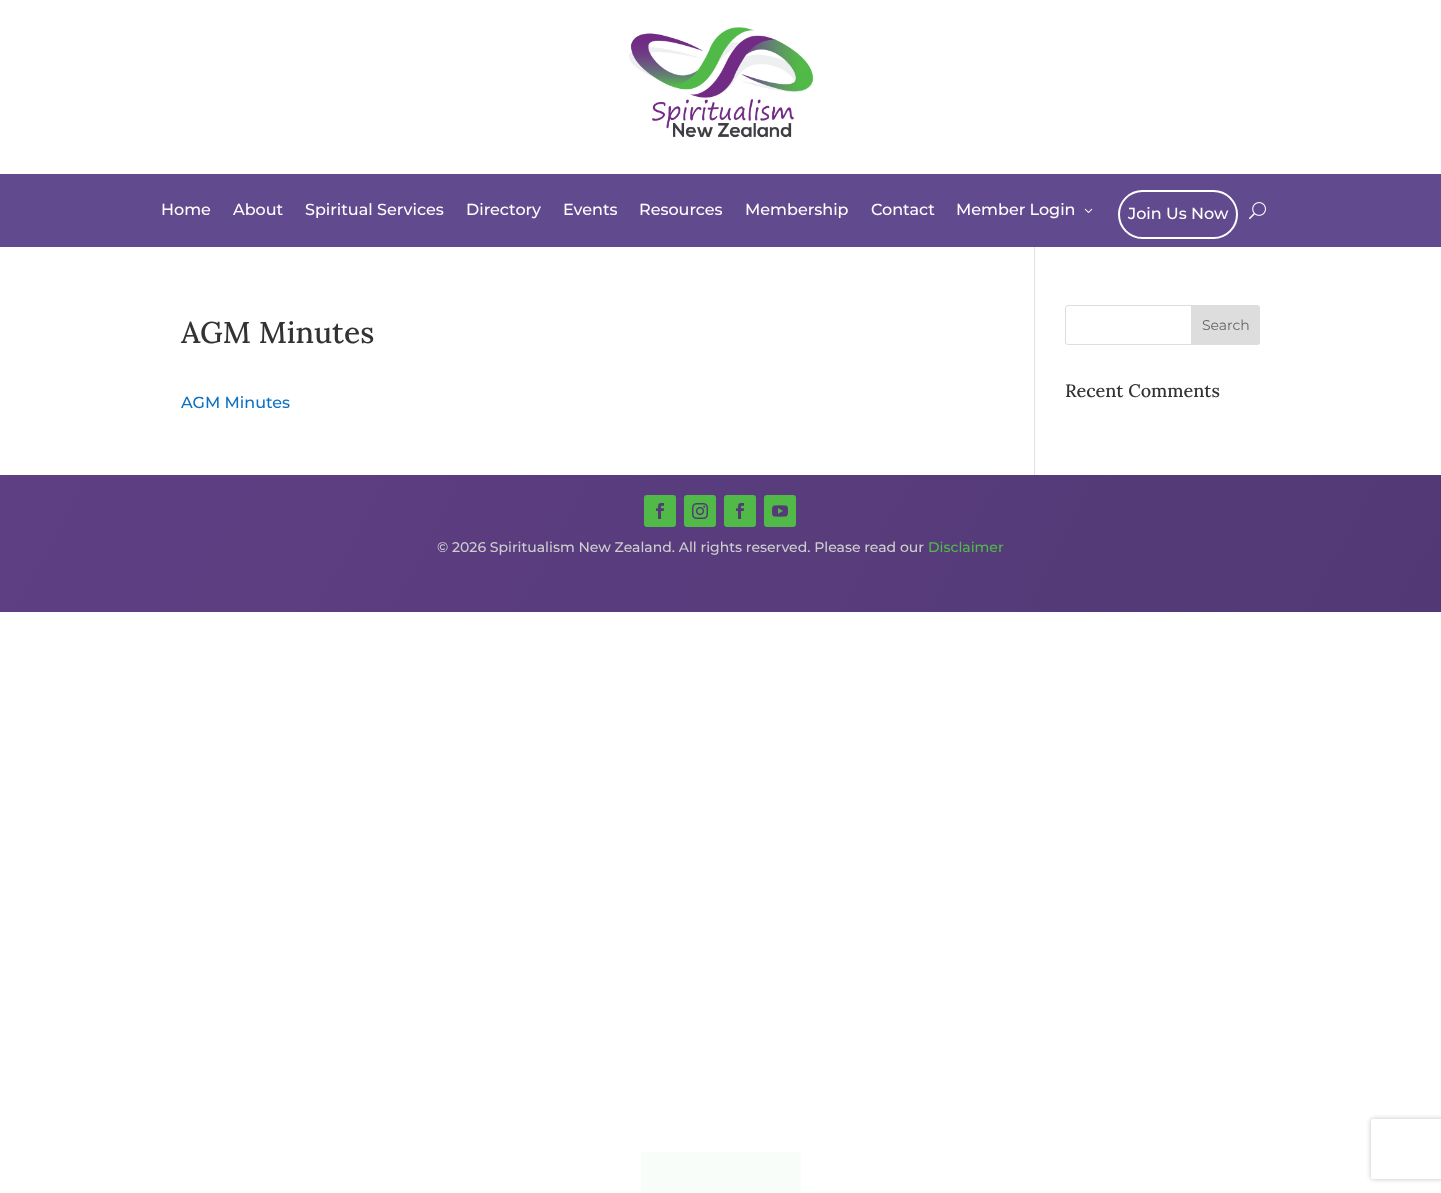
(async () => {
    const canvas = document.querySelector("canvas");
    canvas.width = 1441;
    canvas.height = 1193;
    const context = canvas.getContext("2d");
    context.miterLimit = 4;
    context.fontKerning = "normal";
    function write(s, x, y, font, color) {
        context.font = font;
        context.fillStyle = color;
        context.fillText(s, x, y);
    }
    function block(x, y, w, h, color) {
        context.fillStyle = color;
        context.fillRect(x, y, w, h);
    }
    function card(x, y, w, h, r, color) {
        context.fillStyle = color;
        context.beginPath();
        context.roundRect(x, y, w, h, r);
        context.fill();
    }
    async function photo(src, x, y, w, h) {
        const img = new Image();
        img.src = src;
        await img.decode();
        context.drawImage(img, x, y, w, h);
    }
    let gradient;

    block(0, 0, 1441, 1193, "rgb(255, 255, 255)");
    await photo("media/1.png", 629, 27, 185, 111);
    block(0, 174, 1441, 73, "rgb(98, 74, 142)");
    write("Home", 161, 215, "100 16px Montserrat", "rgb(255, 255, 255)");
    write("About", 233, 215, "100 16px Montserrat", "rgb(255, 255, 255)");
    write("Spiritual Services", 305, 215, "100 16px Montserrat", "rgb(255, 255, 255)");
    write("Directory", 466, 215, "100 16px Montserrat", "rgb(255, 255, 255)");
    write("Events", 563, 215, "100 16px Montserrat", "rgb(255, 255, 255)");
    write("Resources", 639, 215, "100 16px Montserrat", "rgb(255, 255, 255)");
    write("Membership", 745, 215, "100 16px Montserrat", "rgb(255, 255, 255)");
    write("Contact", 871, 215, "100 16px Montserrat", "rgb(255, 255, 255)");
    write("Member Login", 956, 215, "100 16px Montserrat", "rgb(255, 255, 255)");
    await photo("media/2.png", 1084, 208, 9, 5);
    context.beginPath();
    context.roundRect(1119, 191, 118, 47, 23.5);
    context.strokeStyle = "rgb(255, 255, 255)";
    context.lineWidth = 2;
    context.stroke();
    write("Join Us Now", 1128, 219, "100 16px Montserrat", "rgb(255, 255, 255)");
    await photo("media/3.png", 1249, 202, 17, 18);
    block(1034, 247, 1, 228, "rgb(226, 226, 226)");
    write("AGM Minutes", 181, 343, "500 30px Lora", "rgb(51, 51, 51)");
    write("AGM Minutes", 181, 408, "100 16px Montserrat", "rgb(12, 113, 195)");
    context.beginPath();
    context.roundRect(1065.5, 305.5, 194, 39, 2.5);
    context.strokeStyle = "rgb(221, 221, 221)";
    context.lineWidth = 1;
    context.stroke();
    context.fillStyle = "rgb(221, 221, 221)";
    context.beginPath();
    context.roundRect(1191.5, 305.5, 68, 39, [0, 2.5, 2.5, 0]);
    context.fill();
    context.stroke();
    write("Search", 1202, 330, "100 14px 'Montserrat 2'", "rgb(102, 102, 102)");
    write("Recent Comments", 1065, 397, "500 18px Lora", "rgb(51, 51, 51)");
    gradient = context.createLinearGradient(1311, 857, 130, 230);
    gradient.addColorStop(0, "rgb(82, 57, 117)");
    gradient.addColorStop(1, "rgb(95, 63, 132)");
    context.fillStyle = gradient;
    context.fillRect(0, 475, 1441, 137);
    card(644, 495, 32, 32, 3, "rgb(80, 185, 72)");
    await photo("media/4.png", 656, 503, 8, 16);
    card(684, 495, 32, 32, 3, "rgb(80, 185, 72)");
    await photo("media/5.png", 692, 503, 16, 16);
    card(724, 495, 32, 32, 3, "rgb(80, 185, 72)");
    await photo("media/4.png", 736, 503, 8, 16);
    card(764, 495, 32, 32, 3, "rgb(80, 185, 72)");
    await photo("media/6.png", 772, 505, 16, 12);
    write("© 2026 Spiritualism New Zealand. All rights reserved. Please read our", 437, 552, "100 14px Montserrat", "rgb(206, 206, 206)");
    write("Disclaimer", 928, 552, "100 14px Montserrat", "rgb(80, 185, 72)");
    block(641, 1152, 160, 41, "rgb(249, 253, 249)");
    context.save();
    context.beginPath();
    context.moveTo(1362, 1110);
    context.lineTo(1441, 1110);
    context.lineTo(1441, 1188);
    context.lineTo(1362, 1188);
    context.closePath();
    context.moveTo(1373, 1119);
    context.lineTo(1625, 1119);
    context.bezierCurveTo(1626, 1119, 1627, 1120, 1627, 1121);
    context.lineTo(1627, 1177);
    context.bezierCurveTo(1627, 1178, 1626, 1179, 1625, 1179);
    context.lineTo(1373, 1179);
    context.bezierCurveTo(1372, 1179, 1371, 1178, 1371, 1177);
    context.lineTo(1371, 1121);
    context.bezierCurveTo(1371, 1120, 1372, 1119, 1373, 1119);
    context.closePath();
    context.clip("evenodd");
    context.fillStyle = "rgb(192, 192, 192)";
    context.filter = "blur(2.5px)";
    context.beginPath();
    context.roundRect(1371, 1119, 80, 60, 2);
    context.fill();
    context.filter = "none";
    context.restore();
})();
